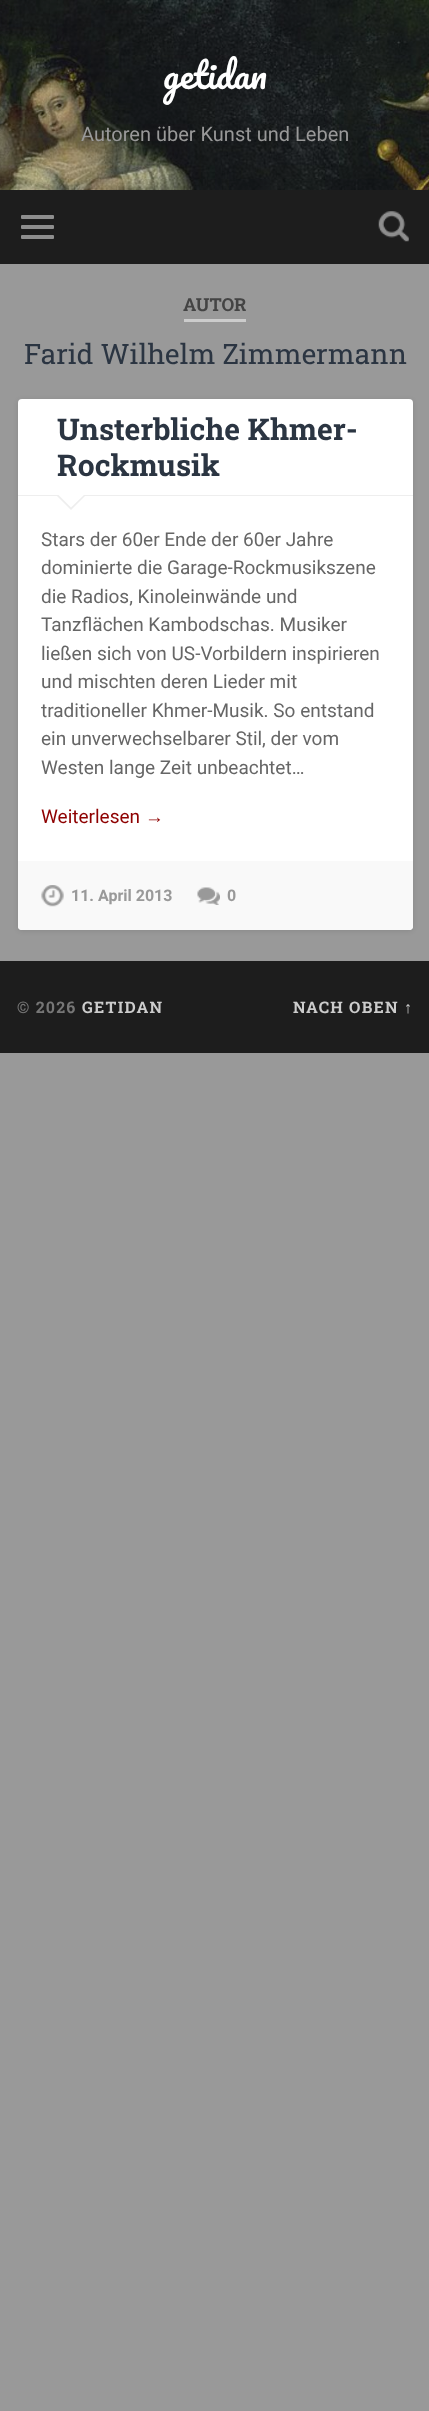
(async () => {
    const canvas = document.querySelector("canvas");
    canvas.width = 429;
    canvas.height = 2411;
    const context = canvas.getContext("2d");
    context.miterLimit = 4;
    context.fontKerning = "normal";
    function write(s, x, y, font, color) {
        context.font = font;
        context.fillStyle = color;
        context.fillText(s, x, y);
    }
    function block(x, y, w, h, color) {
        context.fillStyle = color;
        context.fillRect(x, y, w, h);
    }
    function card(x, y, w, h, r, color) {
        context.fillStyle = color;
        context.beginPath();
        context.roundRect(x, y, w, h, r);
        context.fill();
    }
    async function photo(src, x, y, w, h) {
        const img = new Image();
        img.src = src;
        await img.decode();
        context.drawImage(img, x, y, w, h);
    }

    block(0, 0, 429, 2411, "rgb(153, 153, 153)");
    await photo("media/1.png", 0, 0, 429, 190);
    write("getidan", 163, 89, "35px Pacifico", "rgb(255, 255, 255)");
    write("Autoren über Kunst und Leben", 81, 141, "20px Roboto", "rgb(153, 153, 153)");
    block(0, 190, 429, 74, "rgb(29, 29, 29)");
    card(21, 215, 33, 4, 1, "rgb(142, 142, 142)");
    card(21, 225, 33, 4, 1, "rgb(142, 142, 142)");
    card(21, 235, 33, 4, 1, "rgb(142, 142, 142)");
    await photo("media/2.png", 378, 211, 31, 31);
    block(184, 319, 62, 3, "rgb(204, 204, 204)");
    write("AUTOR", 183, 311, "bold 18px Roboto Slab", "rgb(68, 68, 68)");
    write("Farid Wilhelm Zimmermann", 24, 364, "28px Roboto Slab", "rgb(43, 53, 66)");
    context.fillStyle = "rgba(0, 0, 0, 0.1)";
    context.filter = "blur(2.5px)";
    context.beginPath();
    context.roundRect(18, 400, 395, 531, 4);
    context.fill();
    context.filter = "none";
    card(18, 399, 395, 531, 4, "rgb(255, 255, 255)");
    block(18, 495, 395, 1, "rgb(238, 238, 238)");
    write("Unsterbliche Khmer-", 57, 440, "bold 30px Roboto Slab", "rgb(43, 53, 66)");
    write("Rockmusik", 57, 476, "bold 30px Roboto Slab", "rgb(43, 53, 66)");
    context.fillStyle = "rgb(238, 238, 238)";
    context.beginPath();
    context.moveTo(56, 495);
    context.lineTo(86, 495);
    context.lineTo(71, 510);
    context.closePath();
    context.fill();
    context.fillStyle = "rgb(255, 255, 255)";
    context.beginPath();
    context.moveTo(57.5, 494);
    context.lineTo(85, 494);
    context.lineTo(71, 507.5);
    context.closePath();
    context.fill();
    write("Stars der 60er Ende der 60er Jahre", 41, 546, "19px Roboto", "rgb(102, 102, 102)");
    write("dominierte die Garage-Rockmusikszene", 41, 574, "19px Roboto", "rgb(102, 102, 102)");
    write("die Radios, Kinoleinwände und", 41, 603, "19px Roboto", "rgb(102, 102, 102)");
    write("Tanzflächen Kambodschas. Musiker", 41, 631, "19px Roboto", "rgb(102, 102, 102)");
    write("ließen sich von US-Vorbildern inspirieren", 41, 660, "19px Roboto", "rgb(102, 102, 102)");
    write("und mischten deren Lieder mit", 41, 688, "19px Roboto", "rgb(102, 102, 102)");
    write("traditioneller Khmer-Musik. So entstand", 41, 717, "19px Roboto", "rgb(102, 102, 102)");
    write("ein unverwechselbarer Stil, der vom", 41, 745, "19px Roboto", "rgb(102, 102, 102)");
    write("Westen lange Zeit unbeachtet…", 41, 774, "19px Roboto", "rgb(102, 102, 102)");
    write("Weiterlesen", 41, 823, "19px Roboto", "rgb(142, 1, 1)");
    write("→", 145, 823, "19px Liberation Sans", "rgb(142, 1, 1)");
    context.fillStyle = "rgb(249, 249, 249)";
    context.beginPath();
    context.roundRect(18, 861, 395, 69, [0, 0, 4, 4]);
    context.fill();
    await photo("media/3.png", 41, 885, 23, 22);
    write("11. April 2013", 71, 901, "bold 16px Roboto", "rgb(153, 153, 153)");
    await photo("media/4.png", 197, 887, 23, 18);
    write("0", 227, 901, "bold 16px Roboto", "rgb(153, 153, 153)");
    block(0, 961, 429, 92, "rgb(29, 29, 29)");
    context.letterSpacing = "1.25px";
    write("© 2026", 17, 1013, "bold 16px Roboto Slab", "rgb(118, 118, 118)");
    write("GETIDAN", 82, 1013, "bold 16px Roboto Slab", "rgb(204, 204, 204)");
    write("NACH OBEN", 293, 1013, "bold 16px Roboto Slab", "rgb(204, 204, 204)");
    write("↑", 404, 1013, "bold 16px Liberation Sans", "rgb(204, 204, 204)");
})();
